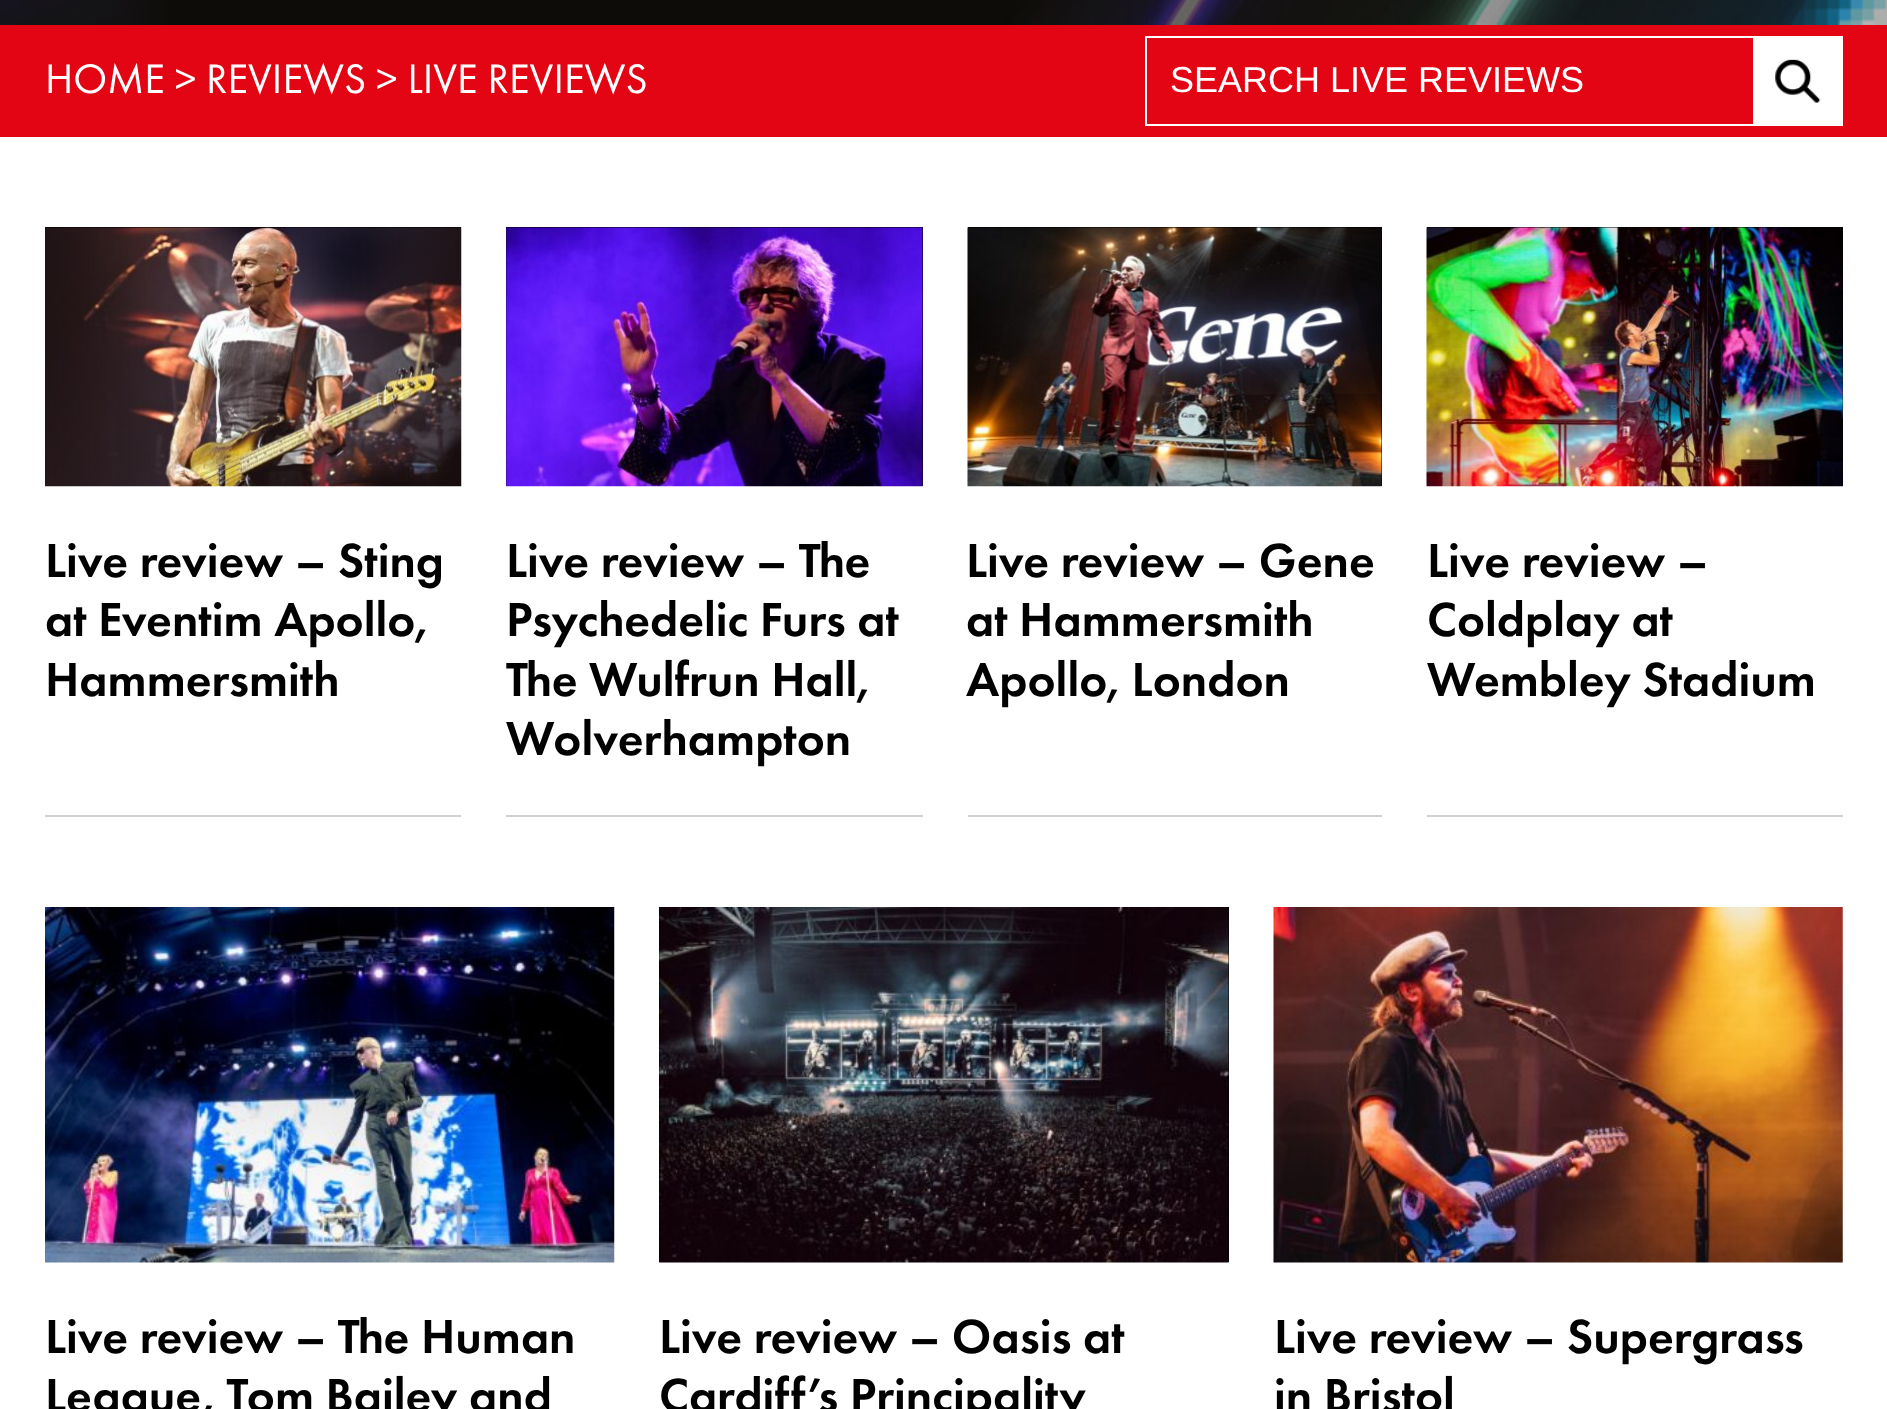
(async () => {
    const canvas = document.querySelector("canvas");
    canvas.width = 1887;
    canvas.height = 1409;
    const context = canvas.getContext("2d");
    context.miterLimit = 4;
    context.fontKerning = "normal";
    function write(s, x, y, font, color) {
        context.font = font;
        context.fillStyle = color;
        context.fillText(s, x, y);
    }
    function block(x, y, w, h, color) {
        context.fillStyle = color;
        context.fillRect(x, y, w, h);
    }
    async function photo(src, x, y, w, h) {
        const img = new Image();
        img.src = src;
        await img.decode();
        context.drawImage(img, x, y, w, h);
    }

    block(0, 0, 1887, 1409, "rgb(255, 255, 255)");
    await photo("media/1.png", 0, 0, 1887, 25);
    block(0, 25, 1887, 112, "rgb(227, 5, 19)");
    write("HOME > REVIEWS > LIVE REVIEWS", 45, 93, "42.75px Futura PT", "rgb(255, 255, 255)");
    context.strokeStyle = "rgb(255, 255, 255)";
    context.lineWidth = 2;
    context.strokeRect(1146, 37, 696, 88);
    write("SEARCH LIVE REVIEWS", 1170, 92, "36px Liberation Sans", "rgb(255, 255, 255)");
    block(1753, 38, 88, 86, "rgb(255, 255, 255)");
    await photo("media/2.png", 1775, 59, 46, 44);
    block(45, 815, 416, 2, "rgb(209, 209, 209)");
    block(45, 227, 416, 1, "rgb(0, 0, 0)");
    await photo("media/3.png", 45, 227, 417, 260);
    write("Live review – Sting", 45, 577, "500 49.5px Futura PT", "rgb(0, 0, 0)");
    write("at Eventim Apollo,", 45, 636, "500 49.5px Futura PT", "rgb(0, 0, 0)");
    write("Hammersmith", 45, 696, "500 49.5px Futura PT", "rgb(0, 0, 0)");
    block(506, 815, 417, 2, "rgb(209, 209, 209)");
    block(506, 227, 417, 259, "rgb(0, 0, 0)");
    await photo("media/4.png", 506, 227, 417, 260);
    write("Live review – The", 506, 577, "500 49.5px Futura PT", "rgb(0, 0, 0)");
    write("Psychedelic Furs at", 506, 636, "500 49.5px Futura PT", "rgb(0, 0, 0)");
    write("The Wulfrun Hall,", 506, 696, "500 49.5px Futura PT", "rgb(0, 0, 0)");
    write("Wolverhampton", 506, 755, "500 49.5px Futura PT", "rgb(0, 0, 0)");
    block(968, 815, 414, 2, "rgb(209, 209, 209)");
    block(968, 227, 414, 259, "rgb(0, 0, 0)");
    await photo("media/5.png", 967, 227, 415, 260);
    write("Live review – Gene", 966, 577, "500 49.5px Futura PT", "rgb(0, 0, 0)");
    write("at Hammersmith", 966, 636, "500 49.5px Futura PT", "rgb(0, 0, 0)");
    write("Apollo, London", 966, 696, "500 49.5px Futura PT", "rgb(0, 0, 0)");
    block(1427, 815, 416, 2, "rgb(209, 209, 209)");
    block(1427, 227, 416, 259, "rgb(0, 0, 0)");
    await photo("media/6.png", 1426, 227, 417, 260);
    write("Live review –", 1427, 577, "500 49.5px Futura PT", "rgb(0, 0, 0)");
    write("Coldplay at", 1427, 636, "500 49.5px Futura PT", "rgb(0, 0, 0)");
    write("Wembley Stadium", 1427, 696, "500 49.5px Futura PT", "rgb(0, 0, 0)");
    await photo("media/7.png", 45, 907, 570, 356);
    write("Live review – The Human", 45, 1353, "500 49.5px Futura PT", "rgb(0, 0, 0)");
    write("League, Tom Bailey and", 45, 1412, "500 49.5px Futura PT", "rgb(0, 0, 0)");
    block(659, 907, 570, 355, "rgb(0, 0, 0)");
    await photo("media/8.png", 659, 907, 570, 356);
    write("Live review – Oasis at", 659, 1353, "500 49.5px Futura PT", "rgb(0, 0, 0)");
    write("Cardiff’s Principality", 659, 1412, "500 49.5px Futura PT", "rgb(0, 0, 0)");
    await photo("media/9.png", 1273, 907, 570, 356);
    write("Live review – Supergrass", 1274, 1353, "500 49.5px Futura PT", "rgb(0, 0, 0)");
    write("in Bristol", 1274, 1412, "500 49.5px Futura PT", "rgb(0, 0, 0)");
})();
